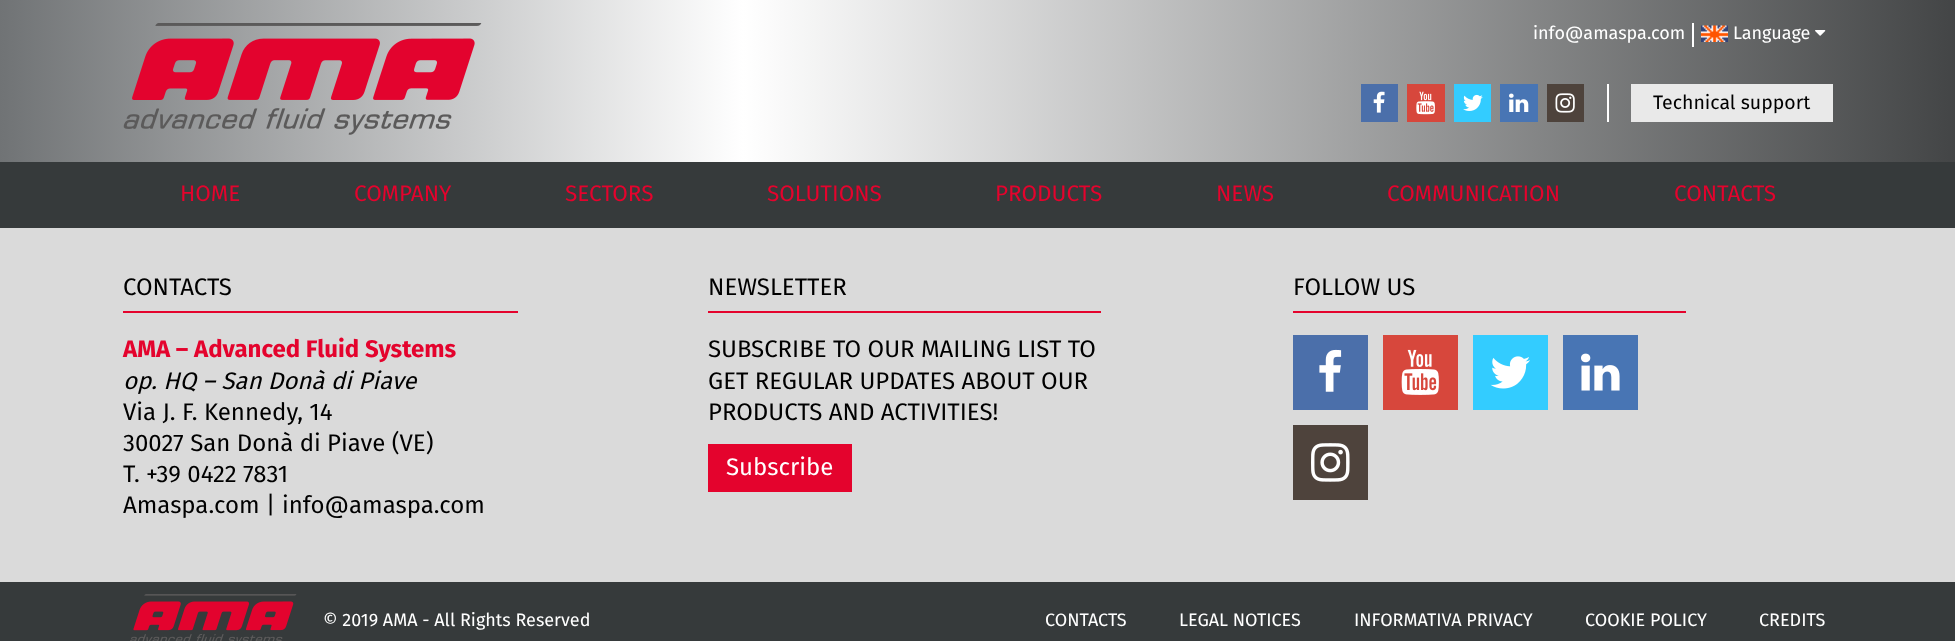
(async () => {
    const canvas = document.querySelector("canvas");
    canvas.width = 1955;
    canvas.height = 641;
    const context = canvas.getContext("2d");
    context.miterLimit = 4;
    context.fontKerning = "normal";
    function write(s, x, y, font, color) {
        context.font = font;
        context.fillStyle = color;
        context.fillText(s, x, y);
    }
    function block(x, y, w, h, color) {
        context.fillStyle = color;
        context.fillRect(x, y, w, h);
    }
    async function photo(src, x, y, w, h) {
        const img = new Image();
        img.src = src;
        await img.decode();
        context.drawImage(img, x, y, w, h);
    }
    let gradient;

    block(0, 0, 1955, 641, "rgb(218, 218, 218)");
    gradient = context.createLinearGradient(0, 114, 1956, 114);
    gradient.addColorStop(0, "rgb(112, 115, 117)");
    gradient.addColorStop(0.38, "rgb(255, 255, 255)");
    gradient.addColorStop(1, "rgb(67, 69, 70)");
    context.fillStyle = gradient;
    context.fillRect(0, 0, 1955, 162);
    await photo("media/1.png", 123, 23, 359, 112);
    block(1692, 23, 2, 24, "rgb(255, 255, 255)");
    write("info@amaspa.com", 1533, 39, "18px Fira Sans", "rgb(255, 255, 255)");
    await photo("media/2.png", 1701, 25, 27, 17);
    write("Language", 1733, 39, "18px Fira Sans", "rgb(255, 255, 255)");
    await photo("media/3.png", 1815, 30, 11, 6);
    block(1361, 84, 37, 38, "rgb(75, 111, 170)");
    await photo("media/4.png", 1373, 91, 12, 22);
    block(1407, 84, 38, 38, "rgb(215, 71, 60)");
    await photo("media/5.png", 1416, 91, 19, 24);
    block(1454, 84, 37, 38, "rgb(51, 204, 255)");
    await photo("media/6.png", 1463, 94, 20, 17);
    block(1500, 84, 38, 38, "rgb(72, 117, 180)");
    await photo("media/7.png", 1509, 93, 20, 19);
    block(1547, 84, 37, 38, "rgb(78, 67, 60)");
    await photo("media/8.png", 1555, 93, 20, 20);
    block(1607, 84, 2, 38, "rgb(255, 255, 255)");
    block(1631, 84, 202, 38, "rgb(233, 233, 233)");
    write("Technical support", 1653, 109, "19.5px Fira Sans", "rgb(0, 0, 0)");
    block(0, 162, 1955, 66, "rgb(54, 58, 59)");
    write("HOME", 180, 201, "22.5px Fira Sans", "rgb(228, 3, 45)");
    write("COMPANY", 354, 201, "22.5px Fira Sans", "rgb(228, 3, 45)");
    write("SECTORS", 565, 201, "22.5px Fira Sans", "rgb(228, 3, 45)");
    write("SOLUTIONS", 767, 201, "22.5px Fira Sans", "rgb(228, 3, 45)");
    write("PRODUCTS", 995, 201, "22.5px Fira Sans", "rgb(228, 3, 45)");
    write("NEWS", 1216, 201, "22.5px Fira Sans", "rgb(228, 3, 45)");
    write("COMMUNICATION", 1387, 201, "22.5px Fira Sans", "rgb(228, 3, 45)");
    write("CONTACTS", 1674, 201, "22.5px Fira Sans", "rgb(228, 3, 45)");
    write("CONTACTS", 123, 295, "24px Fira Sans", "rgb(0, 0, 0)");
    block(123, 311, 395, 2, "rgb(228, 3, 45)");
    write("AMA – Advanced Fluid Systems", 123, 357, "bold 24px Fira Sans", "rgb(228, 3, 45)");
    write("op. HQ – San Donà di Piave", 123, 389, "italic 24px Fira Sans", "rgb(0, 0, 0)");
    write("Via J. F. Kennedy, 14", 123, 420, "24px Fira Sans", "rgb(0, 0, 0)");
    write("30027 San Donà di Piave (VE)", 123, 451, "24px Fira Sans", "rgb(0, 0, 0)");
    write("T. +39 0422 7831", 123, 482, "24px Fira Sans", "rgb(0, 0, 0)");
    write("Amaspa.com | info@amaspa.com", 123, 513, "24px Fira Sans", "rgb(0, 0, 0)");
    write("NEWSLETTER", 708, 295, "24px Fira Sans", "rgb(0, 0, 0)");
    block(708, 311, 393, 2, "rgb(228, 3, 45)");
    write("SUBSCRIBE TO OUR MAILING LIST TO", 708, 357, "24px Fira Sans", "rgb(0, 0, 0)");
    write("GET REGULAR UPDATES ABOUT OUR", 708, 389, "24px Fira Sans", "rgb(0, 0, 0)");
    write("PRODUCTS AND ACTIVITIES!", 708, 420, "24px Fira Sans", "rgb(0, 0, 0)");
    block(708, 444, 144, 48, "rgb(228, 3, 45)");
    write("Subscribe", 726, 475, "24px Fira Sans", "rgb(255, 255, 255)");
    write("FOLLOW US", 1293, 295, "24px Fira Sans", "rgb(0, 0, 0)");
    block(1293, 311, 393, 2, "rgb(228, 3, 45)");
    block(1293, 335, 75, 75, "rgb(75, 111, 170)");
    await photo("media/9.png", 1319, 349, 23, 43);
    block(1383, 335, 75, 75, "rgb(215, 71, 60)");
    await photo("media/10.png", 1401, 349, 38, 46);
    block(1473, 335, 75, 75, "rgb(51, 204, 255)");
    await photo("media/11.png", 1490, 356, 40, 33);
    block(1563, 335, 75, 75, "rgb(72, 117, 180)");
    await photo("media/12.png", 1581, 353, 39, 38);
    block(1293, 425, 75, 75, "rgb(78, 67, 60)");
    await photo("media/13.png", 1311, 443, 39, 39);
    block(0, 582, 1955, 59, "rgb(54, 58, 59)");
    await photo("media/14.png", 130, 594, 167, 47);
    write("© 2019 AMA - All Rights Reserved", 323, 626, "18px Fira Sans", "rgb(255, 255, 255)");
    write("CONTACTS", 1045, 626, "18px Fira Sans", "rgb(255, 255, 255)");
    write("LEGAL NOTICES", 1179, 626, "18px Fira Sans", "rgb(255, 255, 255)");
    write("INFORMATIVA PRIVACY", 1354, 626, "18px Fira Sans", "rgb(255, 255, 255)");
    write("COOKIE POLICY", 1585, 626, "18px Fira Sans", "rgb(255, 255, 255)");
    write("CREDITS", 1759, 626, "18px Fira Sans", "rgb(255, 255, 255)");
})();
